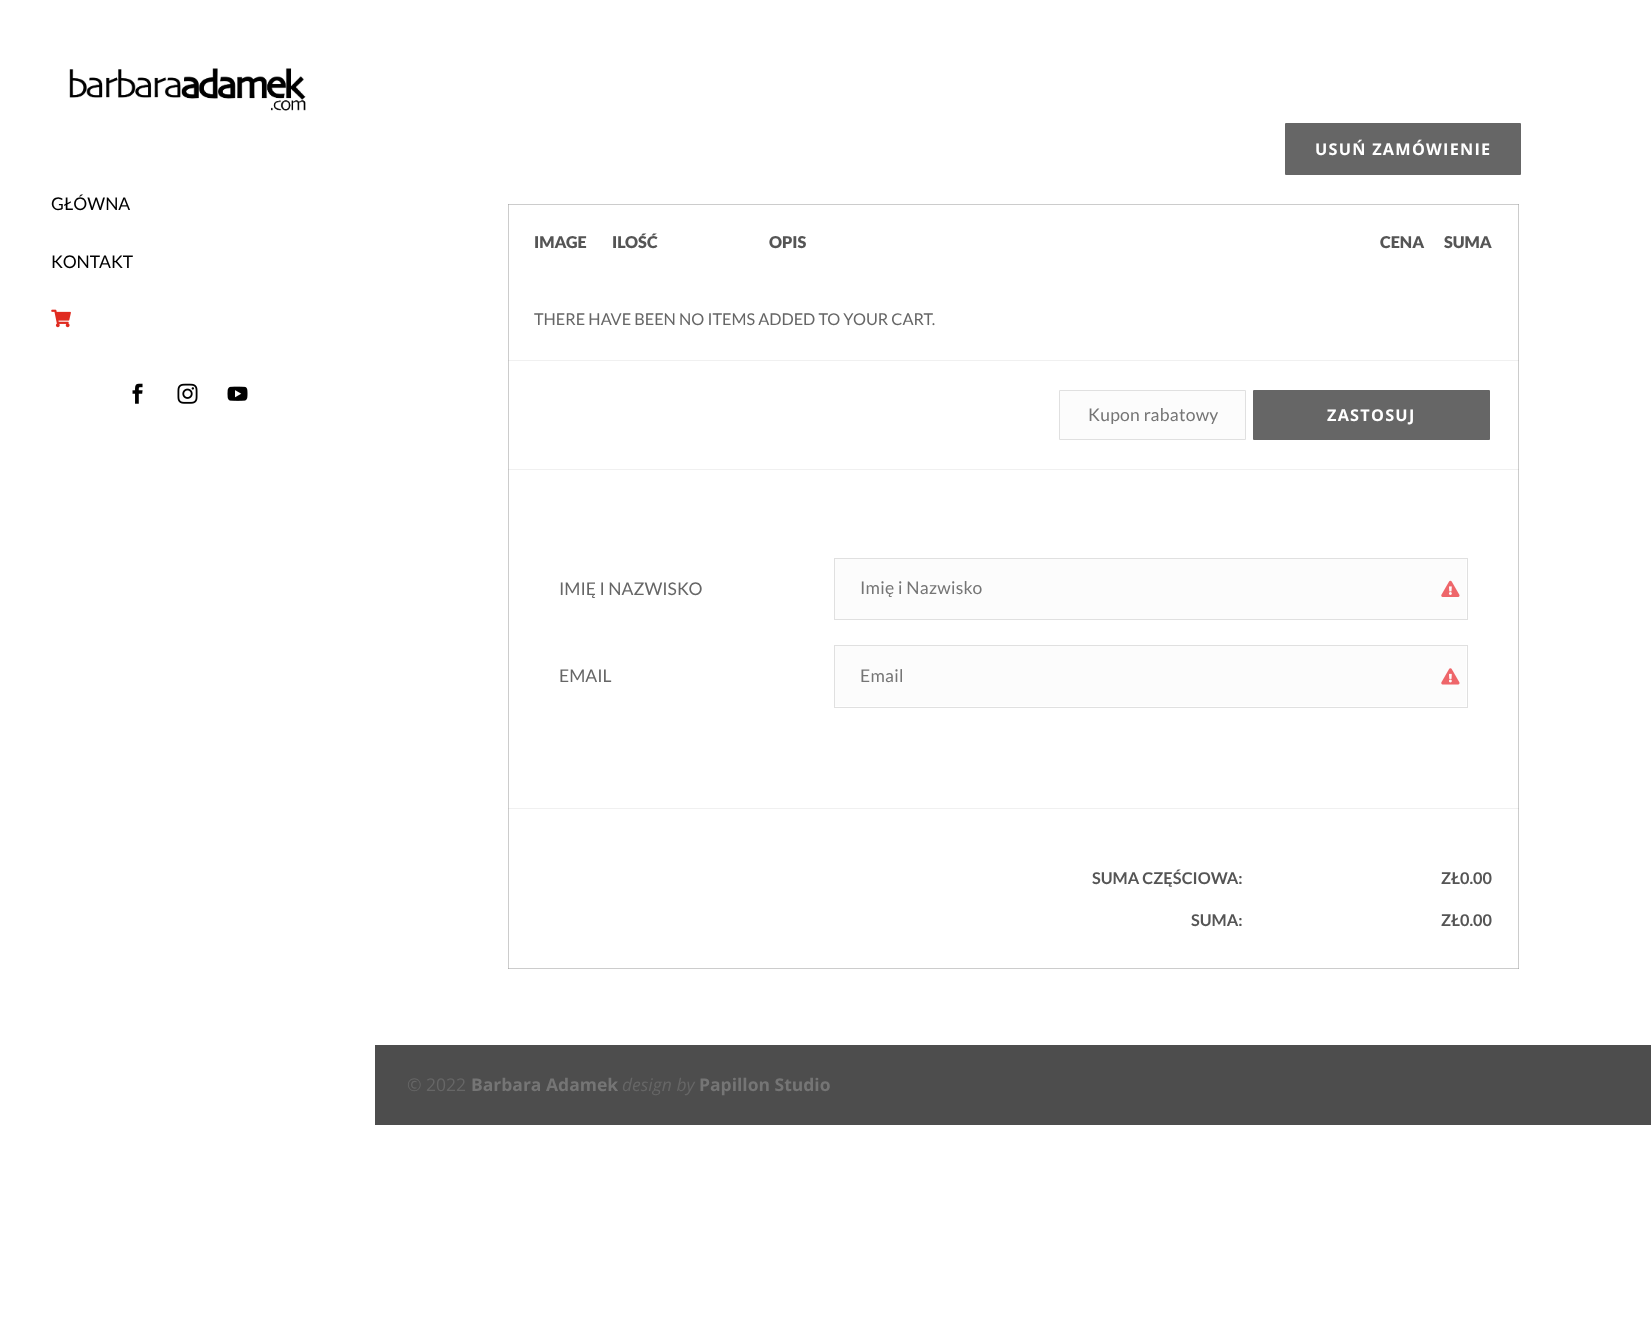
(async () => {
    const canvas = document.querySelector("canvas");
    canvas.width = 1651;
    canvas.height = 1317;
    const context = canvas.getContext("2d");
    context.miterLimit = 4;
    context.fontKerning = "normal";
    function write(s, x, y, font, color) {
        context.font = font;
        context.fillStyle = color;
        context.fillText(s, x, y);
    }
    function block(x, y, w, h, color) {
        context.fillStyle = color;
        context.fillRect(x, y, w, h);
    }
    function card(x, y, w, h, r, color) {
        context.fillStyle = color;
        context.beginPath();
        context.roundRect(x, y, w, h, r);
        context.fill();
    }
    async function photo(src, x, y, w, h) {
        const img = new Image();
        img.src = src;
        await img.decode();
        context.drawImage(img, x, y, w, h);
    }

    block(0, 0, 1651, 1317, "rgb(255, 255, 255)");
    block(508, 360, 1011, 1, "rgb(240, 240, 240)");
    block(508, 469, 1011, 1, "rgb(240, 240, 240)");
    block(508, 808, 1011, 1, "rgb(240, 240, 240)");
    block(508, 204, 1, 765, "rgb(204, 204, 204)");
    block(508, 360, 1, 1, "rgb(196, 196, 196)");
    block(508, 469, 1, 1, "rgb(196, 196, 196)");
    block(508, 808, 1, 1, "rgb(196, 196, 196)");
    block(508, 968, 1011, 1, "rgb(204, 204, 204)");
    block(508, 968, 1, 1, "rgb(179, 179, 179)");
    block(1518, 204, 1, 765, "rgb(204, 204, 204)");
    block(1518, 360, 1, 1, "rgb(196, 196, 196)");
    block(1518, 469, 1, 1, "rgb(196, 196, 196)");
    block(1518, 808, 1, 1, "rgb(196, 196, 196)");
    block(1518, 968, 1, 1, "rgb(179, 179, 179)");
    await photo("media/1.png", 69, 68, 237, 43);
    write("GŁÓWNA", 51, 210, "17.5px Lato", "rgb(0, 0, 0)");
    write("KONTAKT", 51, 268, "17.5px Lato", "rgb(0, 0, 0)");
    await photo("media/2.png", 51, 309, 20, 19);
    await photo("media/3.png", 132, 383, 11, 21);
    await photo("media/4.png", 177, 383, 21, 21);
    await photo("media/5.png", 227, 386, 21, 15);
    card(1285, 123, 236, 52, 1, "rgb(102, 102, 102)");
    context.letterSpacing = "1.25px";
    write("USUŃ ZAMÓWIENIE", 1315, 155, "bold 16.25px Open Sans", "rgb(255, 255, 255)");
    block(508, 204, 1011, 1, "rgb(204, 204, 204)");
    block(508, 204, 1, 1, "rgb(179, 179, 179)");
    block(1518, 204, 1, 1, "rgb(179, 179, 179)");
    context.letterSpacing = "0px";
    write("IMAGE", 534, 248, "900 16.25px Lato", "rgb(85, 85, 85)");
    write("ILOŚĆ", 612, 248, "900 16.25px Lato", "rgb(85, 85, 85)");
    write("OPIS", 769, 248, "900 16.25px Lato", "rgb(85, 85, 85)");
    write("CENA", 1380, 248, "900 16.25px Lato", "rgb(85, 85, 85)");
    write("SUMA", 1444, 248, "900 16.25px Lato", "rgb(85, 85, 85)");
    write("THERE HAVE BEEN NO ITEMS ADDED TO YOUR CART.", 534, 325, "16.25px Lato", "rgb(102, 102, 102)");
    context.fillStyle = "rgb(252, 252, 252)";
    context.beginPath();
    context.rect(1059.5, 390.5, 186, 49);
    context.fill();
    context.strokeStyle = "rgb(224, 224, 224)";
    context.stroke();
    context.letterSpacing = "0.25px";
    write("Kupon rabatowy", 1088, 421, "17.5px Lato", "rgb(117, 117, 117)");
    card(1253, 390, 237, 50, 1, "rgb(102, 102, 102)");
    context.letterSpacing = "1.25px";
    write("ZASTOSUJ", 1327, 421, "bold 16.25px Open Sans", "rgb(255, 255, 255)");
    context.letterSpacing = "0px";
    write("IMIĘ I NAZWISKO", 559, 595, "17.5px Lato", "rgb(102, 102, 102)");
    block(835, 559, 631, 60, "rgb(252, 252, 252)");
    context.strokeRect(834.5, 558.5, 633, 61);
    context.letterSpacing = "0.25px";
    write("Imię i Nazwisko", 860, 594, "17.5px Lato", "rgb(117, 117, 117)");
    await photo("media/6.png", 1441, 580, 19, 17);
    context.letterSpacing = "0px";
    write("EMAIL", 559, 682, "17.5px Lato", "rgb(102, 102, 102)");
    block(835, 646, 631, 60, "rgb(252, 252, 252)");
    context.strokeRect(834.5, 645.5, 633, 62);
    context.letterSpacing = "0.25px";
    write("Email", 860, 682, "17.5px Lato", "rgb(117, 117, 117)");
    await photo("media/7.png", 1441, 668, 19, 17);
    context.letterSpacing = "0px";
    write("SUMA CZĘŚCIOWA:", 1092, 884, "bold 16.25px Lato", "rgb(85, 85, 85)");
    write("ZŁ0.00", 1441, 884, "bold 16.25px Lato", "rgb(85, 85, 85)");
    write("SUMA:", 1191, 926, "bold 16.25px Lato", "rgb(85, 85, 85)");
    write("ZŁ0.00", 1441, 926, "bold 16.25px Lato", "rgb(85, 85, 85)");
    block(375, 1045, 1276, 80, "rgb(77, 77, 77)");
    write("© 2022", 407, 1091, "17.5px Open Sans", "rgb(102, 102, 102)");
    write("Barbara Adamek", 471, 1091, "bold 17.5px Open Sans", "rgb(117, 117, 117)");
    write("design by", 622, 1091, "italic 17.5px Open Sans", "rgb(102, 102, 102)");
    write("Papillon Studio", 699, 1091, "bold 17.5px Open Sans", "rgb(117, 117, 117)");
})();
